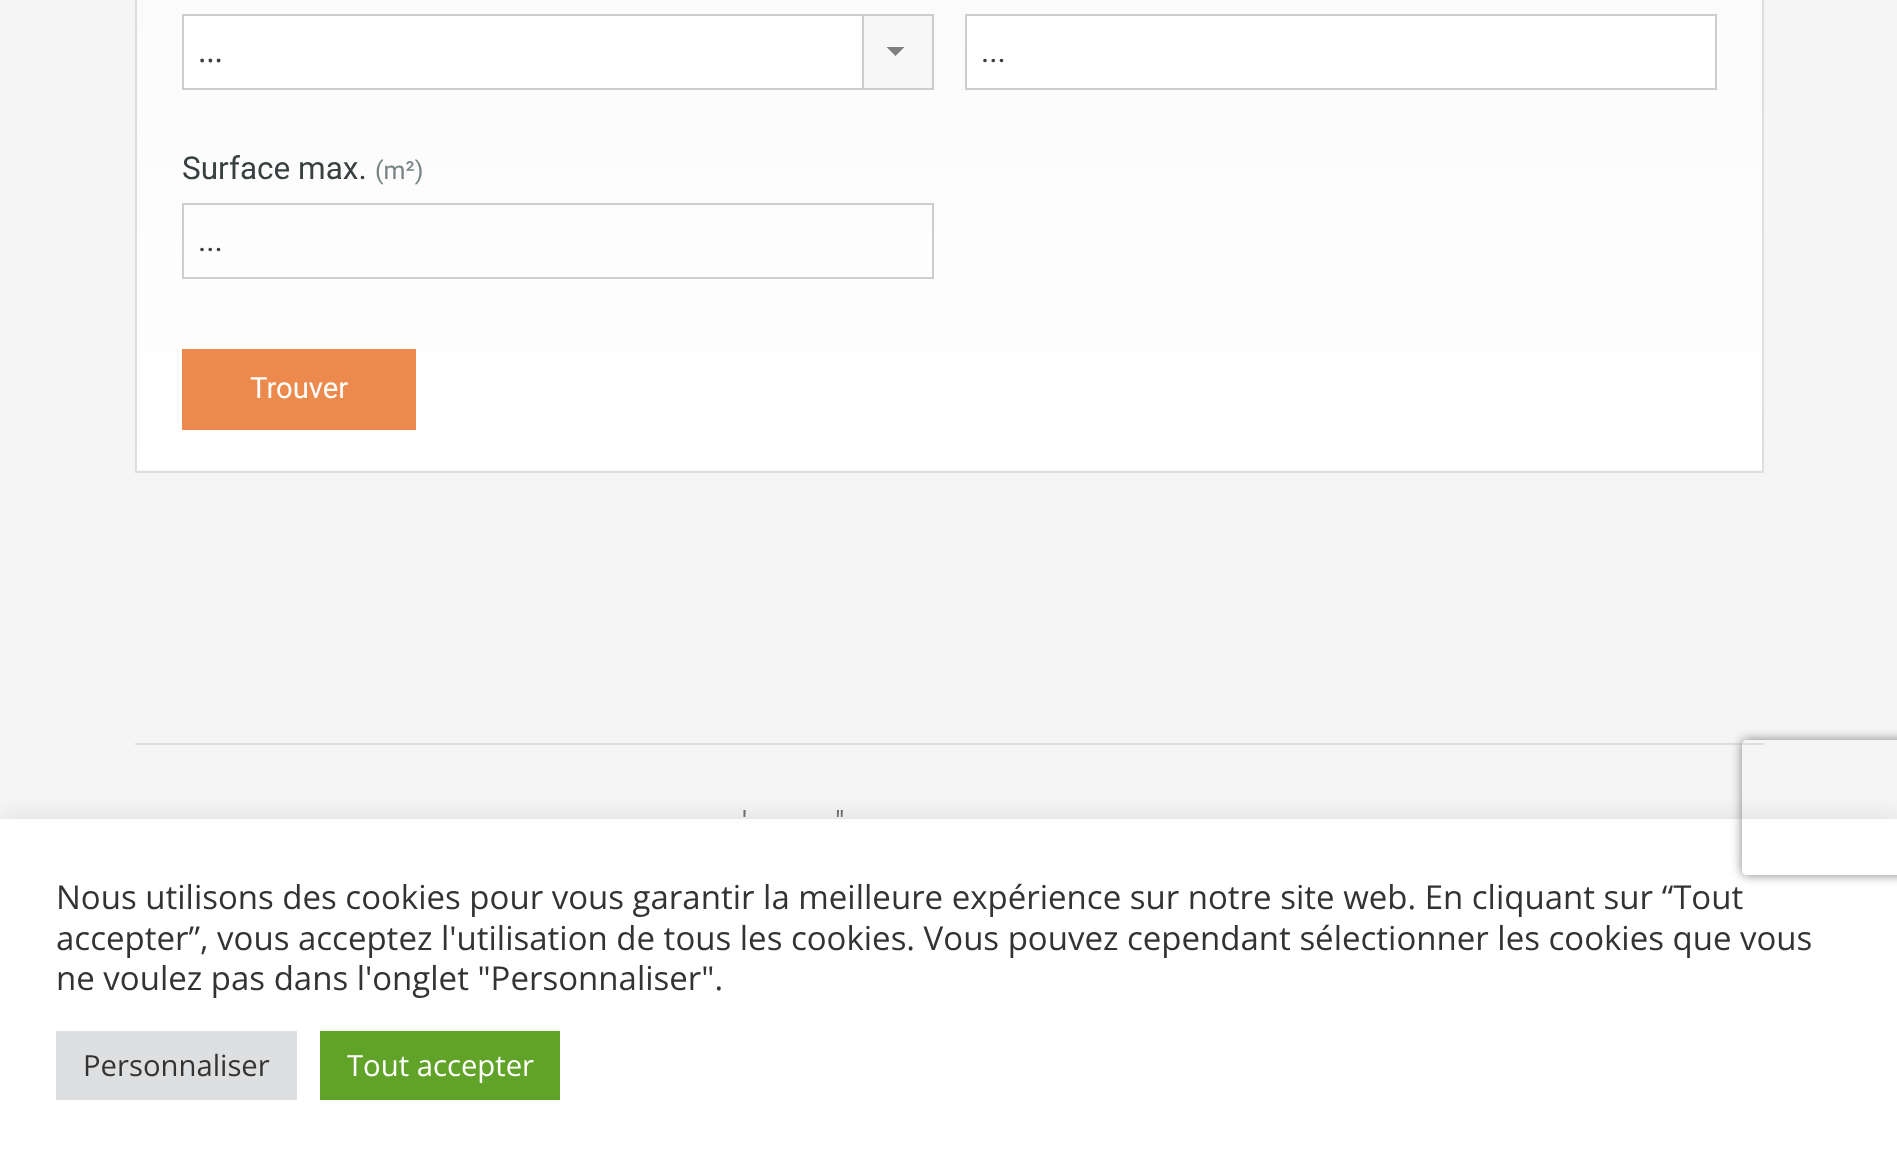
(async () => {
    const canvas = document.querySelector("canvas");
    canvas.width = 1897;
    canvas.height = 1166;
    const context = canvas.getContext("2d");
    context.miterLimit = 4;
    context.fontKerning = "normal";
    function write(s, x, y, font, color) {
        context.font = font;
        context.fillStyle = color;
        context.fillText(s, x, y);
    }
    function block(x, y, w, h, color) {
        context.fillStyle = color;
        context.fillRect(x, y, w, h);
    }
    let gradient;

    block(0, 0, 1897, 1166, "rgb(245, 245, 245)");
    context.strokeStyle = "rgb(222, 222, 222)";
    context.lineWidth = 2;
    context.strokeRect(136, -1, 1627, 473);
    gradient = context.createLinearGradient(950, 470, 950, -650);
    gradient.addColorStop(0, "rgb(255, 255, 255)");
    gradient.addColorStop(1, "rgb(245, 245, 245)");
    context.fillStyle = gradient;
    context.fillRect(137, 0, 1625, 470);
    block(184, 16, 678, 72, "rgb(255, 255, 255)");
    context.strokeStyle = "rgb(205, 205, 205)";
    context.strokeRect(183, 15, 750, 74);
    write("...", 198, 62, "31.5px Open Sans", "rgb(57, 64, 65)");
    block(864, 16, 68, 72, "rgb(247, 247, 247)");
    block(862, 16, 2, 72, "rgb(205, 205, 205)");
    context.fillStyle = "rgb(128, 128, 128)";
    context.beginPath();
    context.moveTo(886.5, 47);
    context.lineTo(904.5, 47);
    context.lineTo(895.5, 56);
    context.closePath();
    context.fill();
    context.fillStyle = "rgb(255, 255, 255)";
    context.beginPath();
    context.rect(966, 15, 750, 74);
    context.fill();
    context.stroke();
    write("...", 981, 62, "31.5px Roboto", "rgb(57, 64, 65)");
    write("Surface max.", 182, 179, "31.5px Roboto", "rgb(57, 64, 65)");
    write("(m²)", 375, 179, "25px Roboto", "rgb(117, 131, 133)");
    context.strokeRect(183, 204, 750, 74);
    write("...", 198, 251, "31.5px Roboto", "rgb(57, 64, 65)");
    block(182, 349, 234, 81, "rgb(236, 137, 77)");
    write("Trouver", 250, 398, "29.25px Roboto", "rgb(255, 255, 255)");
    block(135, 743, 1629, 2, "rgb(222, 222, 222)");
    write("'", 742, 832, "29.25px Roboto", "rgb(102, 102, 102)");
    write("\"", 835, 832, "29.25px Roboto", "rgb(102, 102, 102)");
    context.fillStyle = "rgba(172, 171, 171, 0.3)";
    context.filter = "blur(11px)";
    context.beginPath();
    context.rect(0, 817, 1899, 349);
    context.fill();
    context.filter = "none";
    block(0, 819, 1897, 347, "rgb(255, 255, 255)");
    context.save();
    context.beginPath();
    context.moveTo(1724, 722);
    context.lineTo(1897, 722);
    context.lineTo(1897, 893);
    context.lineTo(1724, 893);
    context.closePath();
    context.moveTo(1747, 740);
    context.lineTo(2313, 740);
    context.bezierCurveTo(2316, 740, 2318, 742, 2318, 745);
    context.lineTo(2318, 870);
    context.bezierCurveTo(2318, 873, 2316, 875, 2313, 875);
    context.lineTo(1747, 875);
    context.bezierCurveTo(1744, 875, 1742, 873, 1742, 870);
    context.lineTo(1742, 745);
    context.bezierCurveTo(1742, 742, 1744, 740, 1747, 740);
    context.closePath();
    context.clip("evenodd");
    context.fillStyle = "rgb(128, 128, 128)";
    context.filter = "blur(5.5px)";
    context.beginPath();
    context.roundRect(1742, 740, 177, 135, 5);
    context.fill();
    context.filter = "none";
    context.restore();
    write("Nous utilisons des cookies pour vous garantir la meilleure expérience sur notre site web. En cliquant sur “Tout", 56, 909, "33px Open Sans", "rgb(51, 51, 51)");
    write("accepter”, vous acceptez l'utilisation de tous les cookies. Vous pouvez cependant sélectionner les cookies que vous", 56, 950, "33px Open Sans", "rgb(51, 51, 51)");
    write("ne voulez pas dans l'onglet \"Personnaliser\".", 56, 990, "33px Open Sans", "rgb(51, 51, 51)");
    block(56, 1031, 241, 69, "rgb(222, 223, 224)");
    write("Personnaliser", 83, 1076, "29.25px Open Sans", "rgb(51, 51, 51)");
    block(320, 1031, 240, 69, "rgb(97, 162, 41)");
    write("Tout accepter", 347, 1076, "29.25px Open Sans", "rgb(255, 255, 255)");
})();
